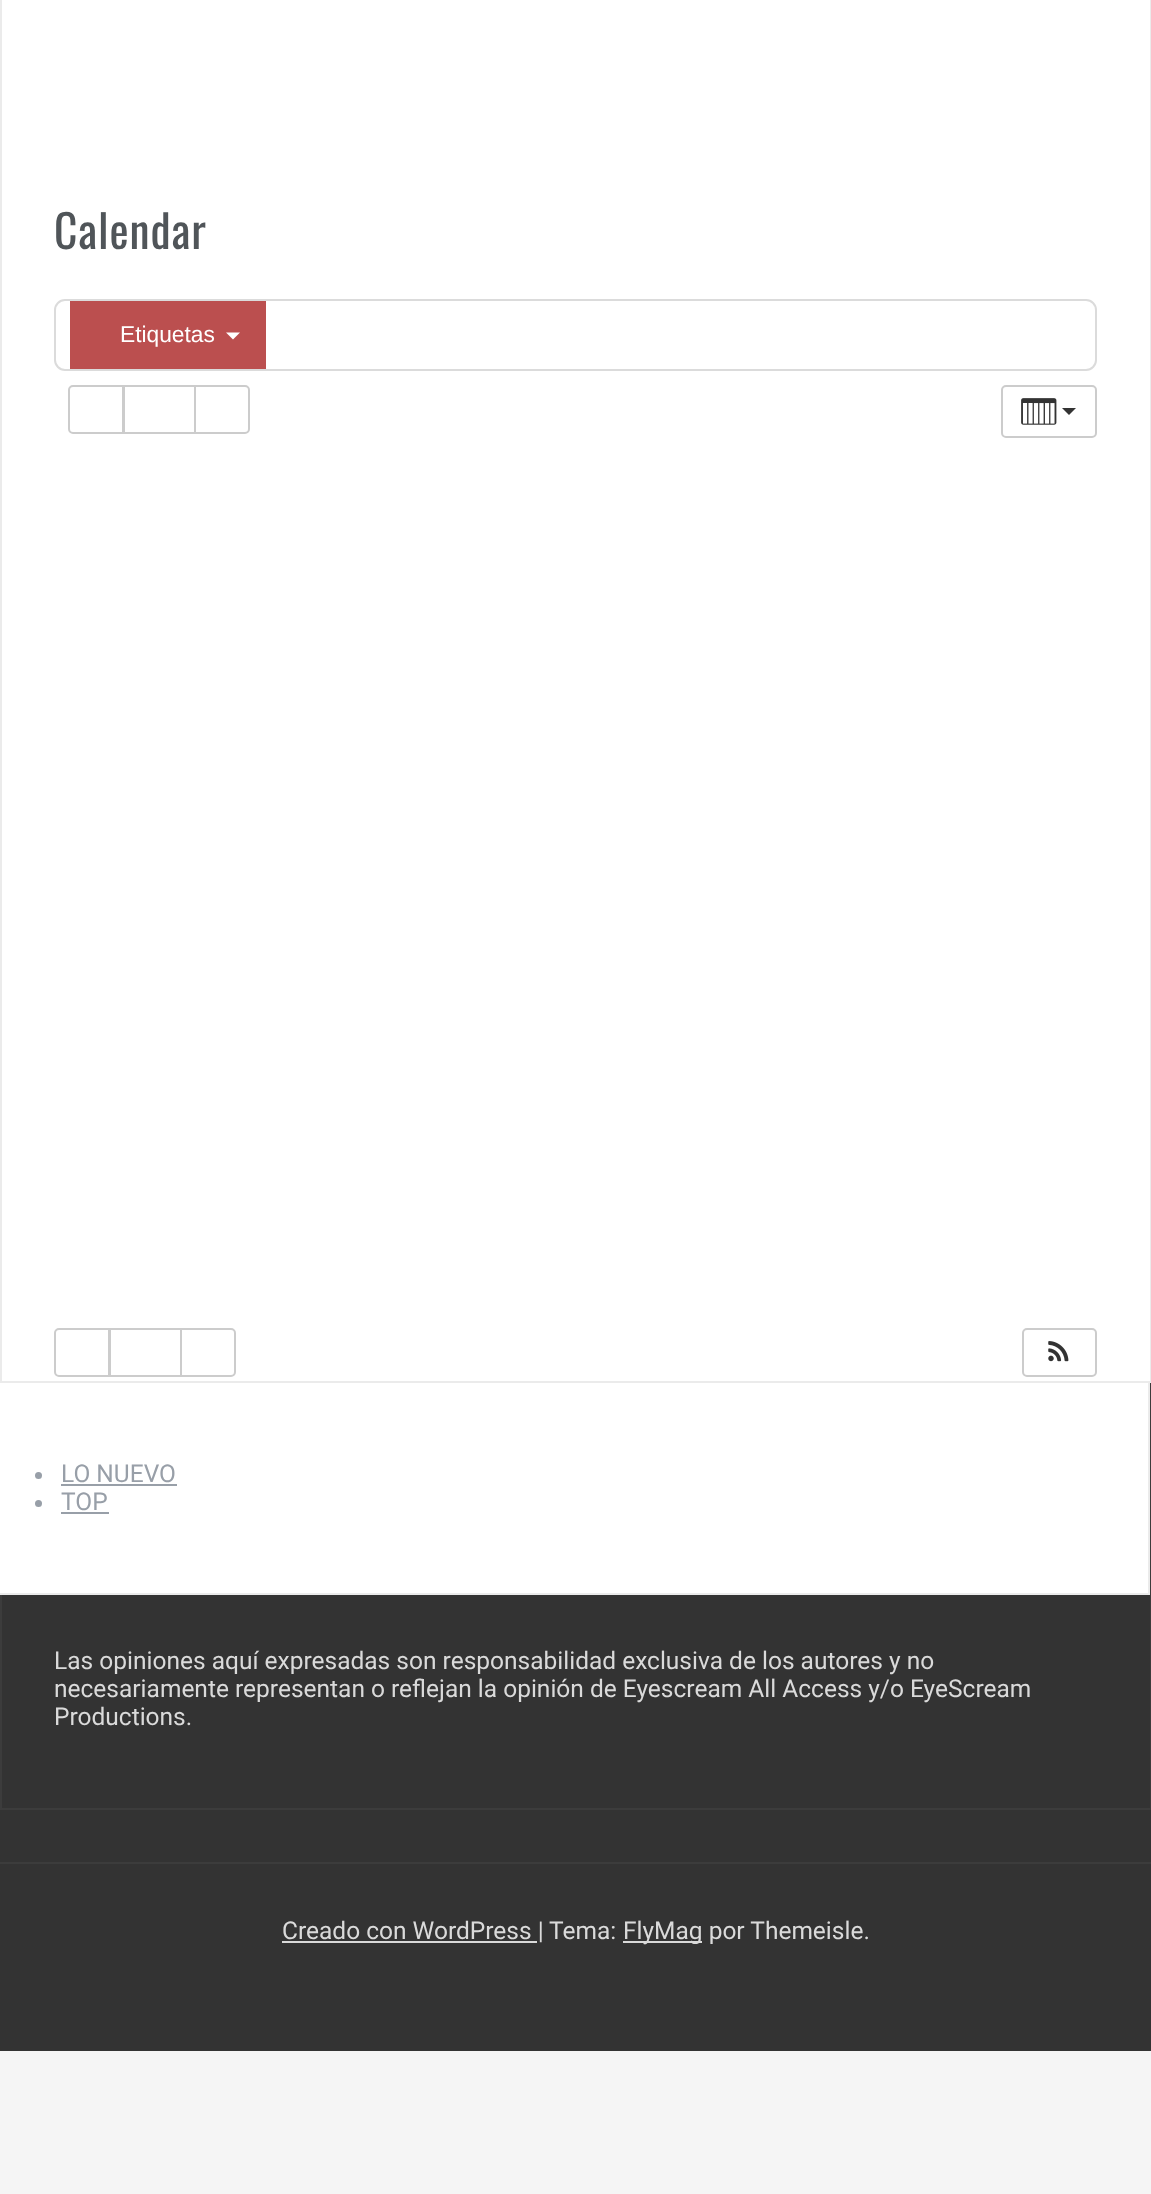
(async () => {
    const canvas = document.querySelector("canvas");
    canvas.width = 1151;
    canvas.height = 2194;
    const context = canvas.getContext("2d");
    context.miterLimit = 4;
    context.fontKerning = "normal";
    function write(s, x, y, font, color) {
        context.font = font;
        context.fillStyle = color;
        context.fillText(s, x, y);
    }
    function block(x, y, w, h, color) {
        context.fillStyle = color;
        context.fillRect(x, y, w, h);
    }
    async function photo(src, x, y, w, h) {
        const img = new Image();
        img.src = src;
        await img.decode();
        context.drawImage(img, x, y, w, h);
    }

    block(0, 0, 1151, 2194, "rgb(245, 245, 245)");
    block(2, 0, 1148, 142, "rgb(255, 255, 255)");
    block(1150, 0, 1, 142, "rgb(235, 235, 235)");
    block(0, 0, 2, 142, "rgb(235, 235, 235)");
    block(0, 1595, 1151, 267, "rgb(51, 51, 51)");
    context.strokeStyle = "rgb(60, 60, 60)";
    context.lineWidth = 2;
    context.strokeRect(1, 195, 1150, 1614);
    block(2, 142, 1148, 1239, "rgb(255, 255, 255)");
    block(1150, 142, 1, 1241, "rgb(235, 235, 235)");
    block(0, 1381, 1151, 2, "rgb(235, 235, 235)");
    block(0, 142, 2, 1241, "rgb(235, 235, 235)");
    context.letterSpacing = "1px";
    write("Calendar", 54, 249, "45.5px Oswald", "rgb(80, 85, 89)");
    context.beginPath();
    context.roundRect(55, 300, 1041, 70, 10);
    context.strokeStyle = "rgb(219, 219, 219)";
    context.stroke();
    block(70, 301, 196, 68, "rgb(187, 79, 79)");
    context.letterSpacing = "0px";
    write("Etiquetas", 120, 342, "22.75px Liberation Sans", "rgb(255, 255, 255)");
    context.beginPath();
    context.moveTo(226, 332.5);
    context.lineTo(240, 332.5);
    context.lineTo(233, 339.5);
    context.closePath();
    context.fill();
    context.beginPath();
    context.roundRect(69, 386, 54, 47, [4, 0, 0, 4]);
    context.strokeStyle = "rgb(204, 204, 204)";
    context.stroke();
    context.strokeRect(124, 386, 71, 47);
    context.beginPath();
    context.roundRect(195, 386, 54, 47, [0, 4, 4, 0]);
    context.fill();
    context.stroke();
    context.beginPath();
    context.roundRect(1002, 386, 94, 51, 4);
    context.stroke();
    await photo("media/1.png", 1021, 398, 36, 27);
    context.fillStyle = "rgb(51, 51, 51)";
    context.beginPath();
    context.moveTo(1062, 408);
    context.lineTo(1076, 408);
    context.lineTo(1069, 415);
    context.closePath();
    context.fill();
    context.beginPath();
    context.roundRect(55, 1329, 54, 47, [4, 0, 0, 4]);
    context.stroke();
    context.strokeRect(110, 1329, 71, 47);
    context.fillStyle = "rgb(255, 255, 255)";
    context.beginPath();
    context.roundRect(181, 1329, 54, 47, [0, 4, 4, 0]);
    context.fill();
    context.stroke();
    context.beginPath();
    context.roundRect(1023, 1329, 73, 47, 4);
    context.stroke();
    await photo("media/2.png", 1048, 1341, 21, 21);
    block(0, 1383, 1148, 210, "rgb(255, 255, 255)");
    block(1148, 1383, 2, 211, "rgb(235, 235, 235)");
    block(0, 1593, 1150, 2, "rgb(235, 235, 235)");
    context.fillStyle = "rgb(152, 159, 168)";
    context.beginPath();
    context.arc(38.5, 1475.5, 3.5, 0, Math.PI * 2);
    context.fill();
    write("LO NUEVO", 61, 1482, "24.5px Roboto", "rgb(152, 159, 168)");
    block(61, 1484, 116, 2, "rgb(152, 159, 168)");
    context.beginPath();
    context.arc(38.5, 1503.5, 3.5, 0, Math.PI * 2);
    context.fill();
    write("TOP", 61, 1510, "24.5px Roboto", "rgb(152, 159, 168)");
    block(61, 1512, 48, 2, "rgb(152, 159, 168)");
    block(0, 1862, 1151, 2, "rgb(60, 60, 60)");
    write("Las opiniones aquí expresadas son responsabilidad exclusiva de los autores y no", 54, 1669, "24.5px Roboto", "rgb(218, 218, 218)");
    write("necesariamente representan o reflejan la opinión de Eyescream All Access y/o EyeScream", 54, 1697, "24.5px Roboto", "rgb(218, 218, 218)");
    write("Productions.", 54, 1725, "24.5px Roboto", "rgb(218, 218, 218)");
    block(0, 1864, 1151, 187, "rgb(51, 51, 51)");
    block(282, 1941, 255, 2, "rgb(218, 218, 218)");
    write("Creado con WordPress |", 282, 1939, "24.5px Roboto", "rgb(218, 218, 218)");
    write("Tema:", 549, 1939, "24.5px Roboto", "rgb(218, 218, 218)");
    block(623, 1941, 79, 2, "rgb(218, 218, 218)");
    write("FlyMag por Themeisle.", 623, 1939, "24.5px Roboto", "rgb(218, 218, 218)");
})();
